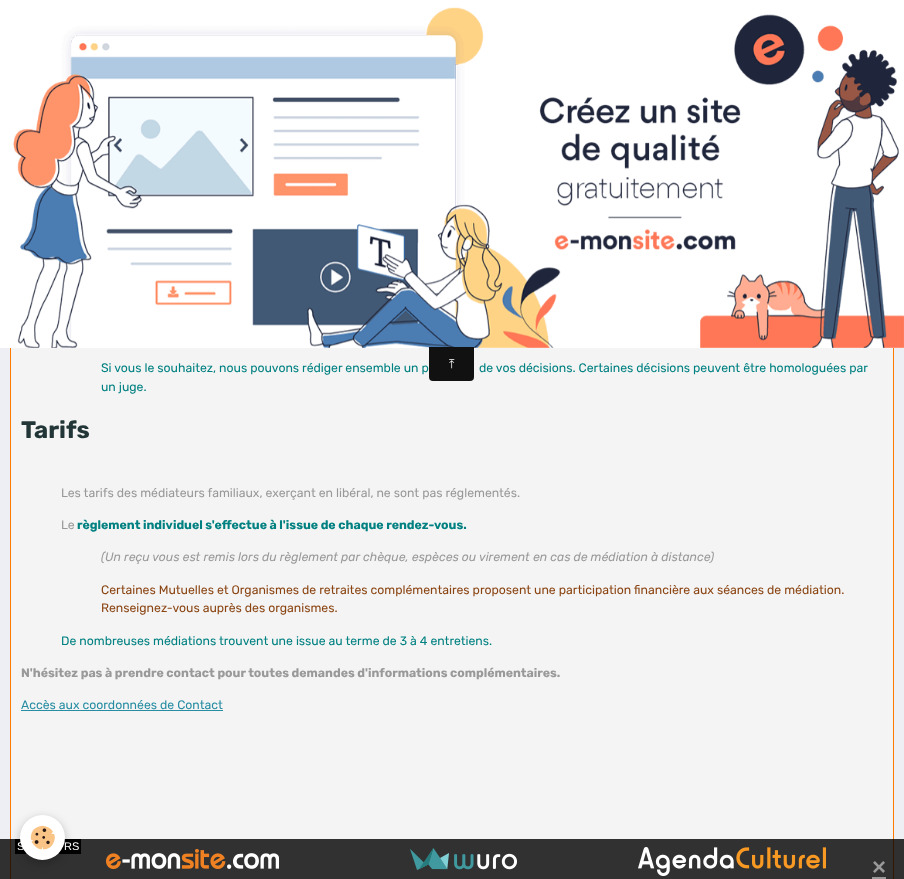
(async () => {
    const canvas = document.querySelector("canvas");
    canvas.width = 904;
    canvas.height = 879;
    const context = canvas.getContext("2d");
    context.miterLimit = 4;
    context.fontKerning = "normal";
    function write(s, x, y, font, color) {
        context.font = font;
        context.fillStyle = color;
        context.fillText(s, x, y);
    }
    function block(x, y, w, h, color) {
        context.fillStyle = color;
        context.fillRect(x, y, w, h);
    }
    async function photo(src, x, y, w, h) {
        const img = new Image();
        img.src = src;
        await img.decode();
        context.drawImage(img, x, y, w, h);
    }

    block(0, 0, 904, 879, "rgb(237, 239, 244)");
    block(11, 348, 882, 531, "rgb(244, 244, 244)");
    context.strokeStyle = "rgb(255, 120, 0)";
    context.strokeRect(10.5, 58.5, 883, 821);
    block(0, 0, 904, 348, "rgb(255, 255, 255)");
    await photo("media/1.png", 13, 7, 891, 341);
    context.fillStyle = "rgb(17, 17, 17)";
    context.beginPath();
    context.roundRect(429, 347, 45, 34, [0, 0, 4, 4]);
    context.fill();
    write("⤒", 449, 368, "12.25px FreeSerif", "rgb(255, 255, 255)");
    write("Si vous le souhaitez, nous pouvons rédiger ensemble un p", 101, 372, "12.25px Rubik", "rgb(0, 128, 128)");
    write("de vos décisions. Certaines décisions peuvent être homologuées par", 479, 372, "12.25px Rubik", "rgb(0, 128, 128)");
    write("un juge.", 101, 391, "12.25px Rubik", "rgb(0, 128, 128)");
    write("Tarifs", 21, 438, "bold 24px Rubik", "rgb(35, 54, 55)");
    write("Les tarifs des médiateurs familiaux, exerçant en libéral, ne sont pas réglementés.", 61, 497, "12.25px Rubik", "rgb(153, 153, 153)");
    write("Le", 61, 529, "12.25px Rubik", "rgb(153, 153, 153)");
    write("règlement individuel s'effectue à l'issue de chaque rendez-vous.", 77, 529, "bold 12.25px Rubik", "rgb(0, 128, 128)");
    write("(Un reçu vous est remis lors du règlement par chèque, espèces ou virement en cas de médiation à distance)", 101, 561, "italic 12.25px Rubik", "rgb(153, 153, 153)");
    write("Certaines Mutuelles et Organismes de retraites complémentaires proposent une participation financière aux séances de médiation.", 101, 594, "12.25px Rubik", "rgb(139, 69, 19)");
    write("Renseignez-vous auprès des organismes.", 101, 612, "12.25px Rubik", "rgb(139, 69, 19)");
    write("De nombreuses médiations trouvent une issue au terme de 3 à 4 entretiens.", 61, 645, "12.25px Rubik", "rgb(0, 128, 128)");
    write("N'hésitez pas à prendre contact pour toutes demandes d'informations complémentaires.", 21, 677, "bold 12.25px Rubik", "rgb(153, 153, 153)");
    write("Accès aux coordonnées de Contact", 21, 709, "12.25px Rubik", "rgb(38, 141, 162)");
    block(21, 710, 202, 1, "rgb(38, 141, 162)");
    block(0, 839, 904, 40, "rgba(0, 0, 0, 0.8)");
    block(15, 839, 66, 15, "rgb(0, 0, 0)");
    context.fillStyle = "rgba(0, 0, 0, 0.24)";
    context.filter = "blur(5px)";
    context.beginPath();
    context.roundRect(20, 818, 45, 45, 22.5);
    context.fill();
    context.filter = "none";
    context.fillStyle = "rgb(255, 255, 255)";
    context.beginPath();
    context.arc(42.5, 837.5, 22.5, 0, Math.PI * 2);
    context.fill();
    await photo("media/2.png", 30, 825, 25, 25);
    write("S", 17, 850, "11px Liberation Sans", "rgb(255, 255, 255)");
    write("RS", 64, 850, "11px Liberation Sans", "rgb(255, 255, 255)");
    await photo("media/3.png", 106, 849, 173, 20);
    await photo("media/4.png", 410, 848, 107, 22);
    await photo("media/5.png", 638, 847, 188, 29);
    write("×", 872, 875, "bold 24px Liberation Sans", "rgb(153, 153, 153)");
    block(872, 877, 14, 2, "rgb(152, 152, 152)");
})();
